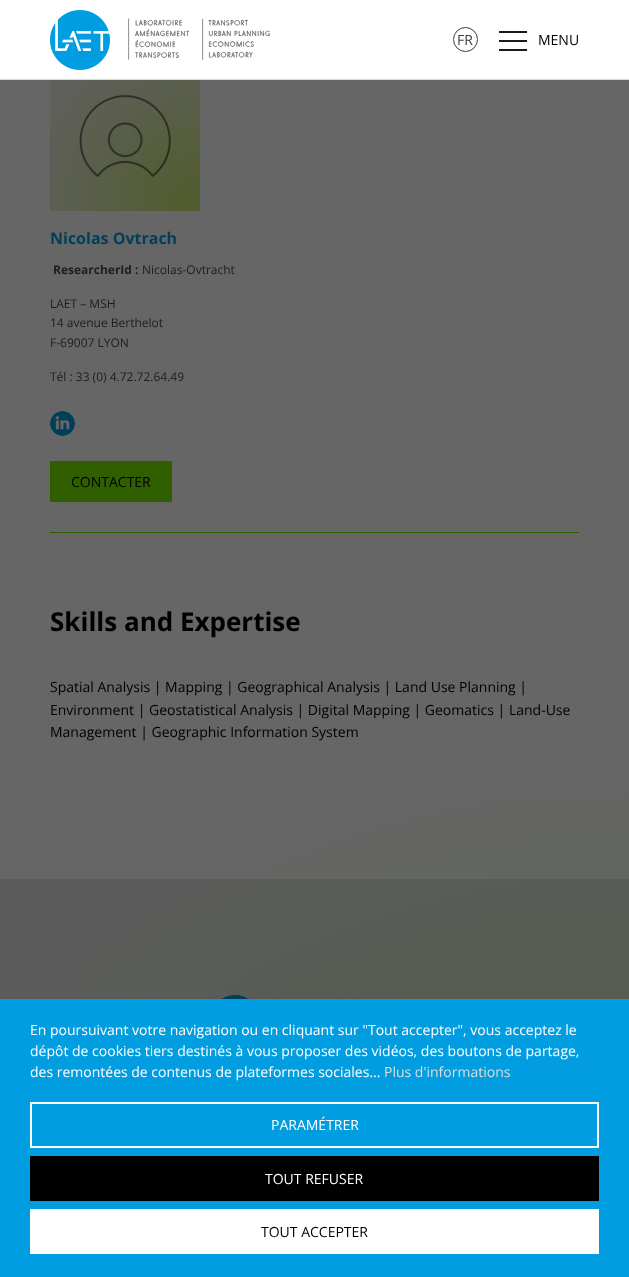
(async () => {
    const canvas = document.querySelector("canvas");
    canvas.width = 629;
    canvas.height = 1277;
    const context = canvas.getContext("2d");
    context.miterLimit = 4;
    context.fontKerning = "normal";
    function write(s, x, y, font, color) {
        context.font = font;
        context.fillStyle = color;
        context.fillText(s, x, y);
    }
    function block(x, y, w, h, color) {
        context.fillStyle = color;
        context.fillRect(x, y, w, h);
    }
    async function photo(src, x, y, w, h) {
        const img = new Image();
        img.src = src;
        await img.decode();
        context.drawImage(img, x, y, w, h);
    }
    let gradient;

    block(0, 0, 629, 1277, "rgb(102, 102, 102)");
    block(0, 0, 629, 79, "rgb(255, 255, 255)");
    block(0, 79, 629, 1, "rgb(217, 217, 217)");
    await photo("media/1.png", 50, 10, 60, 60);
    await photo("media/2.png", 128, 18, 142, 42);
    context.beginPath();
    context.arc(465.5, 39.5, 12, 0, Math.PI * 2);
    context.strokeStyle = "rgb(64, 64, 64)";
    context.stroke();
    write("FR", 457, 45, "14px Open Sans", "rgb(64, 64, 64)");
    block(499, 49, 28, 2, "rgb(26, 26, 26)");
    block(499, 40, 28, 2, "rgb(26, 26, 26)");
    block(499, 31, 28, 2, "rgb(26, 26, 26)");
    write("MENU", 538, 45, "14px Open Sans", "rgb(0, 0, 0)");
    block(50, 532, 529, 1, "rgb(48, 95, 0)");
    await photo("media/3.png", 50, 80, 150, 131);
    write("Nicolas Ovtrach", 50, 244, "bold 16px Open Sans", "rgb(0, 63, 90)");
    write("ResearcherId :", 53, 274, "bold 12px Open Sans", "rgb(30, 30, 31)");
    write("Nicolas-Ovtracht", 142, 274, "12px Open Sans", "rgb(30, 30, 31)");
    write("LAET – MSH", 50, 308, "12px Open Sans", "rgb(30, 30, 31)");
    write("14 avenue Berthelot", 50, 327, "12px Open Sans", "rgb(30, 30, 31)");
    write("F-69007 LYON", 50, 347, "12px Open Sans", "rgb(30, 30, 31)");
    write("Tél : 33 (0) 4.72.72.64.49", 50, 381, "12px Open Sans", "rgb(30, 30, 31)");
    await photo("media/4.png", 50, 411, 25, 25);
    block(50, 461, 122, 41, "rgb(48, 95, 0)");
    write("CONTACTER", 71, 487, "14px Open Sans", "rgb(0, 0, 0)");
    write("Skills and Expertise", 50, 631, "bold 26px Open Sans", "rgb(0, 0, 0)");
    write("Spatial Analysis | Mapping | Geographical Analysis | Land Use Planning |", 50, 692, "14px Open Sans", "rgb(0, 0, 0)");
    write("Environment | Geostatistical Analysis | Digital Mapping | Geomatics | Land-Use", 50, 715, "14px Open Sans", "rgb(0, 0, 0)");
    write("Management | Geographic Information System", 50, 737, "14px Open Sans", "rgb(0, 0, 0)");
    block(0, 879, 629, 120, "rgb(92, 92, 92)");
    gradient = context.createRadialGradient(629, 1670, 0, 629, 1670, 1338);
    gradient.addColorStop(0, "rgba(48, 95, 0, 0.4)");
    gradient.addColorStop(0.7, "rgba(48, 95, 0, 0)");
    context.fillStyle = gradient;
    context.fillRect(79, 793, 550, 206);
    await photo("media/5.png", 221, 995, 28, 4);
    await photo("media/6.png", 278, 998, 75, 1);
    block(0, 999, 629, 278, "rgb(0, 158, 224)");
    write("En poursuivant votre navigation ou en cliquant sur \"Tout accepter\", vous acceptez le", 30, 1035, "14px Open Sans", "rgb(255, 255, 255)");
    write("dépôt de cookies tiers destinés à vous proposer des vidéos, des boutons de partage,", 30, 1056, "14px Open Sans", "rgb(255, 255, 255)");
    write("des remontées de contenus de plateformes sociales...", 30, 1077, "14px Open Sans", "rgb(255, 255, 255)");
    write("Plus d'informations", 384, 1077, "14px Open Sans", "rgb(221, 221, 221)");
    context.strokeStyle = "rgb(255, 255, 255)";
    context.lineWidth = 2;
    context.strokeRect(31, 1103, 567, 44);
    write("PARAMÉTRER", 271, 1130, "14px Open Sans", "rgb(255, 255, 255)");
    block(30, 1156, 569, 45, "rgb(0, 0, 0)");
    write("TOUT REFUSER", 265, 1184, "14px Open Sans", "rgb(255, 255, 255)");
    block(30, 1209, 569, 45, "rgb(255, 255, 255)");
    write("TOUT ACCEPTER", 261, 1237, "14px Open Sans", "rgb(0, 0, 0)");
})();
